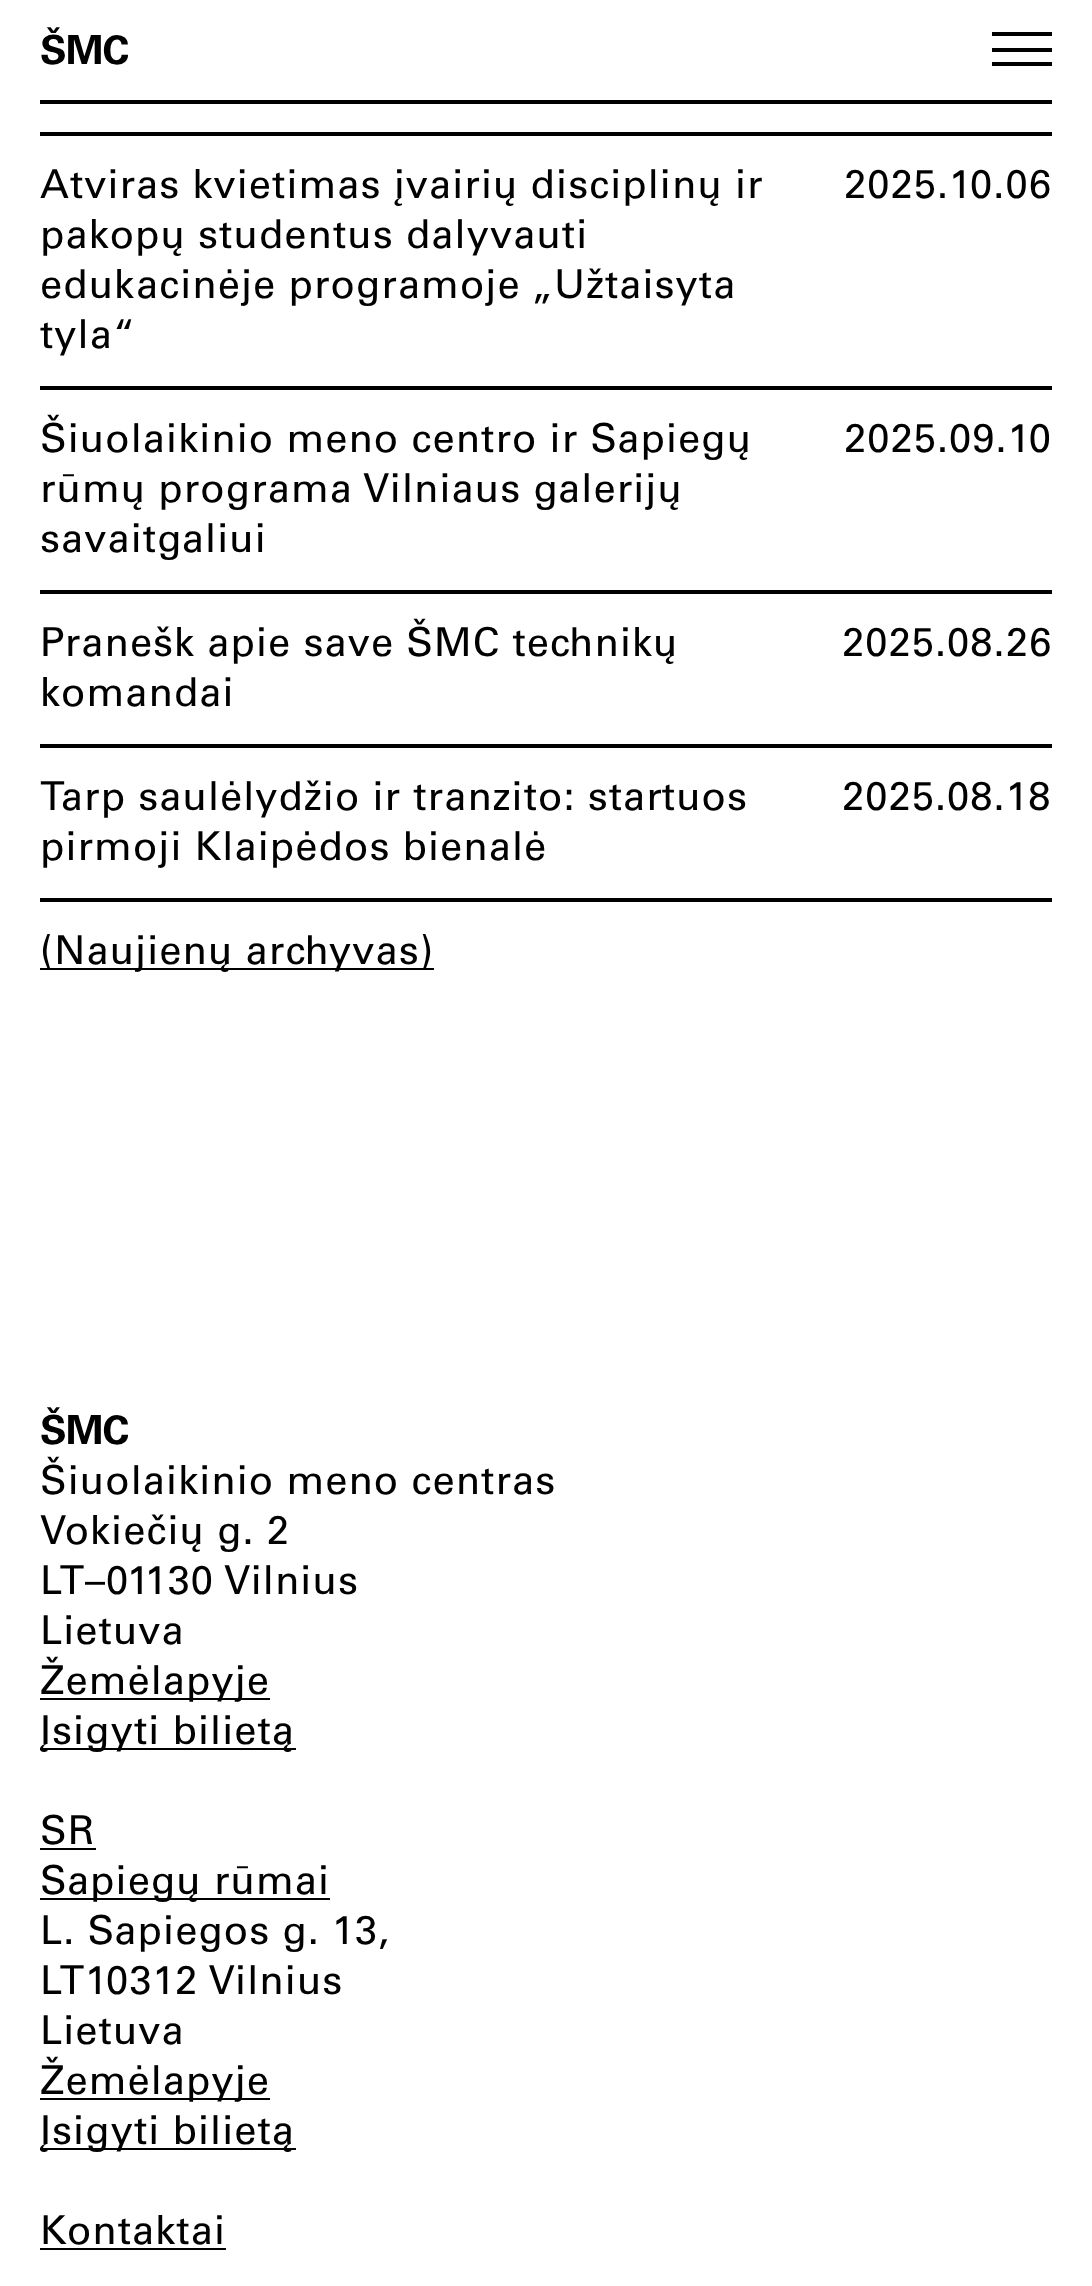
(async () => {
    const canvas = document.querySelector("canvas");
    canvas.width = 1092;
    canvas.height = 2286;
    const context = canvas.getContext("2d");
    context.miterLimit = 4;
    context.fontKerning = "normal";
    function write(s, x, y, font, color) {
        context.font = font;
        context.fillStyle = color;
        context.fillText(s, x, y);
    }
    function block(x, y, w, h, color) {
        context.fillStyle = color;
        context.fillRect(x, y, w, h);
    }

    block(0, 0, 1092, 2286, "rgb(255, 255, 255)");
    block(40, 100, 1012, 4, "rgb(0, 0, 0)");
    context.letterSpacing = "-1px";
    write("ŠMC", 40, 64, "bold 40px Univers", "rgb(0, 0, 0)");
    block(992, 32, 60, 4, "rgb(0, 0, 0)");
    block(992, 48, 60, 4, "rgb(0, 0, 0)");
    block(992, 62, 60, 4, "rgb(0, 0, 0)");
    block(40, 132, 1012, 4, "rgb(0, 0, 0)");
    block(40, 386, 1012, 4, "rgb(0, 0, 0)");
    context.letterSpacing = "1px";
    write("Atviras kvietimas įvairių disciplinų ir", 40, 198, "40px Univers", "rgb(0, 0, 0)");
    write("pakopų studentus dalyvauti", 40, 248, "40px Univers", "rgb(0, 0, 0)");
    write("edukacinėje programoje „Užtaisyta", 40, 298, "40px Univers", "rgb(0, 0, 0)");
    write("tyla“", 40, 348, "40px Univers", "rgb(0, 0, 0)");
    write("2025.10.06", 844, 198, "40px Univers", "rgb(0, 0, 0)");
    block(40, 590, 1012, 4, "rgb(0, 0, 0)");
    write("Šiuolaikinio meno centro ir Sapiegų", 40, 452, "40px Univers", "rgb(0, 0, 0)");
    write("rūmų programa Vilniaus galerijų", 40, 502, "40px Univers", "rgb(0, 0, 0)");
    write("savaitgaliui", 40, 552, "40px Univers", "rgb(0, 0, 0)");
    write("2025.09.10", 844, 452, "40px Univers", "rgb(0, 0, 0)");
    block(40, 744, 1012, 4, "rgb(0, 0, 0)");
    write("Pranešk apie save ŠMC technikų", 40, 656, "40px Univers", "rgb(0, 0, 0)");
    write("komandai", 40, 706, "40px Univers", "rgb(0, 0, 0)");
    write("2025.08.26", 842, 656, "40px Univers", "rgb(0, 0, 0)");
    block(40, 898, 1012, 4, "rgb(0, 0, 0)");
    write("Tarp saulėlydžio ir tranzito: startuos", 40, 810, "40px Univers", "rgb(0, 0, 0)");
    write("pirmoji Klaipėdos bienalė", 40, 860, "40px Univers", "rgb(0, 0, 0)");
    write("2025.08.18", 842, 810, "40px Univers", "rgb(0, 0, 0)");
    block(40, 968, 394, 2, "rgb(0, 0, 0)");
    write("(Naujienų archyvas)", 40, 964, "40px Univers", "rgb(0, 0, 0)");
    context.letterSpacing = "-1px";
    write("ŠMC", 40, 1444, "bold 40px Univers", "rgb(0, 0, 0)");
    context.letterSpacing = "1px";
    write("Šiuolaikinio meno centras", 40, 1494, "40px Univers", "rgb(0, 0, 0)");
    write("Vokiečių g. 2", 40, 1544, "40px Univers", "rgb(0, 0, 0)");
    write("LT–01130 Vilnius", 40, 1594, "40px Univers", "rgb(0, 0, 0)");
    write("Lietuva", 40, 1644, "40px Univers", "rgb(0, 0, 0)");
    block(40, 1698, 230, 2, "rgb(0, 0, 0)");
    write("Žemėlapyje", 40, 1694, "40px Univers", "rgb(0, 0, 0)");
    block(40, 1748, 256, 2, "rgb(0, 0, 0)");
    write("Įsigyti bilietą", 40, 1744, "40px Univers", "rgb(0, 0, 0)");
    write("SR", 40, 1844, "40px Univers", "rgb(0, 0, 0)");
    block(40, 1848, 56, 2, "rgb(0, 0, 0)");
    block(40, 1898, 290, 2, "rgb(0, 0, 0)");
    write("Sapiegų rūmai", 40, 1894, "40px Univers", "rgb(0, 0, 0)");
    write("L. Sapiegos g. 13,", 40, 1944, "40px Univers", "rgb(0, 0, 0)");
    write("LT10312 Vilnius", 40, 1994, "40px Univers", "rgb(0, 0, 0)");
    write("Lietuva", 40, 2044, "40px Univers", "rgb(0, 0, 0)");
    block(40, 2098, 230, 2, "rgb(0, 0, 0)");
    write("Žemėlapyje", 40, 2094, "40px Univers", "rgb(0, 0, 0)");
    block(40, 2148, 256, 2, "rgb(0, 0, 0)");
    write("Įsigyti bilietą", 40, 2144, "40px Univers", "rgb(0, 0, 0)");
    write("Kontaktai", 40, 2244, "40px Univers", "rgb(0, 0, 0)");
    block(40, 2248, 186, 2, "rgb(0, 0, 0)");
})();
